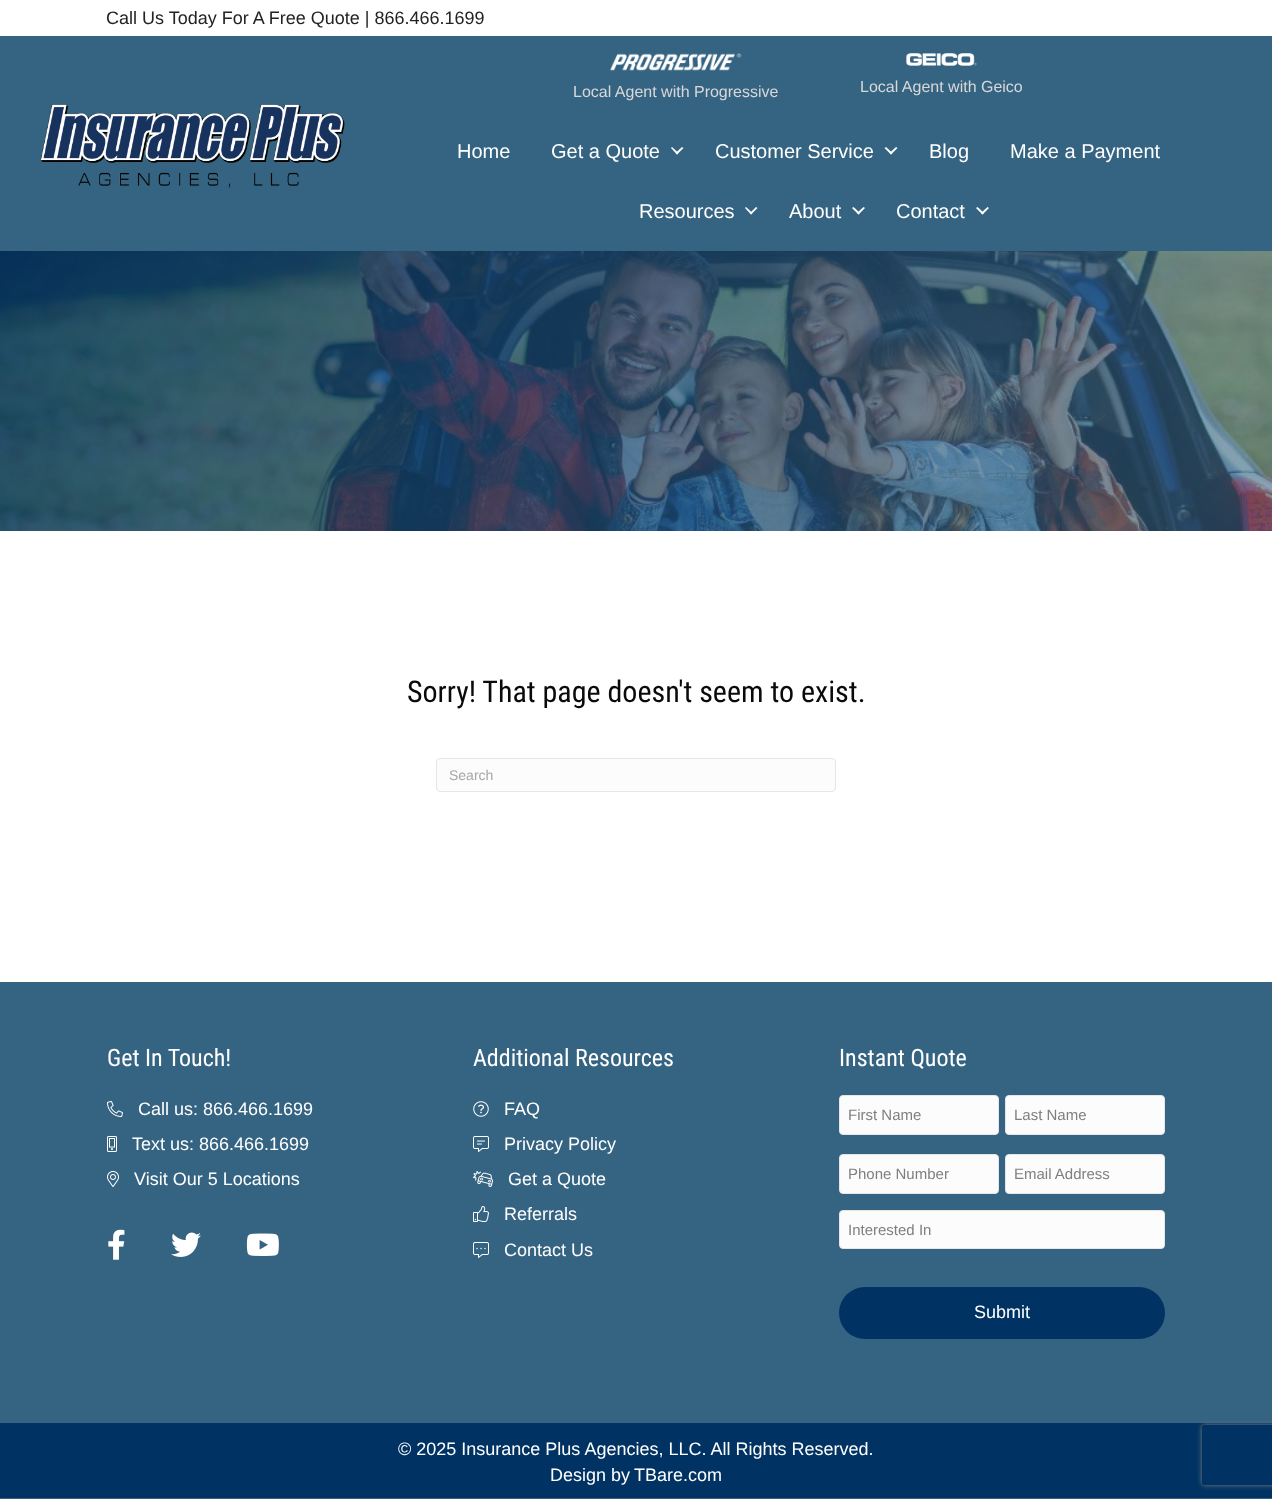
(async () => {
    const canvas = document.querySelector("canvas");
    canvas.width = 1272;
    canvas.height = 1499;
    const context = canvas.getContext("2d");
    context.miterLimit = 4;
    context.fontKerning = "normal";
    function write(s, x, y, font, color) {
        context.font = font;
        context.fillStyle = color;
        context.fillText(s, x, y);
    }
    function block(x, y, w, h, color) {
        context.fillStyle = color;
        context.fillRect(x, y, w, h);
    }
    function card(x, y, w, h, r, color) {
        context.fillStyle = color;
        context.beginPath();
        context.roundRect(x, y, w, h, r);
        context.fill();
    }
    async function photo(src, x, y, w, h) {
        const img = new Image();
        img.src = src;
        await img.decode();
        context.drawImage(img, x, y, w, h);
    }

    block(0, 0, 1272, 1499, "rgb(53, 100, 130)");
    block(0, 0, 1272, 36, "rgb(255, 255, 255)");
    write("Call Us Today For A Free Quote | 866.466.1699", 106, 24, "18px Liberation Sans", "rgb(35, 35, 35)");
    await photo("media/1.png", 40, 104, 305, 84);
    await photo("media/2.png", 610, 53, 132, 18);
    write("Local Agent with Progressive", 573, 97, "16px Liberation Sans", "rgb(216, 216, 216)");
    await photo("media/3.png", 906, 53, 71, 13);
    write("Local Agent with Geico", 860, 92, "16px Liberation Sans", "rgb(216, 216, 216)");
    write("Home", 457, 158, "20px Liberation Sans", "rgb(255, 255, 255)");
    write("Get a Quote", 551, 158, "20px Liberation Sans", "rgb(255, 255, 255)");
    context.beginPath();
    context.moveTo(682, 147);
    context.lineTo(683.5, 148);
    context.lineTo(677, 154.5);
    context.lineTo(675.5, 153);
    context.closePath();
    context.fill();
    context.beginPath();
    context.moveTo(672, 147);
    context.lineTo(678.5, 153);
    context.lineTo(677, 154.5);
    context.lineTo(671, 148);
    context.closePath();
    context.fill();
    write("Customer Service", 715, 158, "20px Liberation Sans", "rgb(255, 255, 255)");
    context.beginPath();
    context.moveTo(896, 147);
    context.lineTo(897.5, 148);
    context.lineTo(891, 154.5);
    context.lineTo(889.5, 153);
    context.closePath();
    context.fill();
    context.beginPath();
    context.moveTo(886, 147);
    context.lineTo(892.5, 153);
    context.lineTo(891, 154.5);
    context.lineTo(884.5, 148);
    context.closePath();
    context.fill();
    write("Blog", 929, 158, "20px Liberation Sans", "rgb(255, 255, 255)");
    write("Make a Payment", 1010, 158, "20px Liberation Sans", "rgb(255, 255, 255)");
    write("Resources", 639, 218, "20px Liberation Sans", "rgb(255, 255, 255)");
    context.beginPath();
    context.moveTo(756, 207);
    context.lineTo(757.5, 208);
    context.lineTo(751, 214.5);
    context.lineTo(750, 213);
    context.closePath();
    context.fill();
    context.beginPath();
    context.moveTo(746, 207);
    context.lineTo(752.5, 213);
    context.lineTo(751, 214.5);
    context.lineTo(745, 208);
    context.closePath();
    context.fill();
    write("About", 789, 218, "20px Liberation Sans", "rgb(255, 255, 255)");
    context.beginPath();
    context.moveTo(863.5, 207);
    context.lineTo(865, 208);
    context.lineTo(858.5, 214.5);
    context.lineTo(857, 213);
    context.closePath();
    context.fill();
    context.beginPath();
    context.moveTo(853.5, 207);
    context.lineTo(860, 213);
    context.lineTo(858.5, 214.5);
    context.lineTo(852, 208);
    context.closePath();
    context.fill();
    write("Contact", 896, 218, "20px Liberation Sans", "rgb(255, 255, 255)");
    context.beginPath();
    context.moveTo(987.5, 207);
    context.lineTo(989, 208);
    context.lineTo(982.5, 214.5);
    context.lineTo(981, 213);
    context.closePath();
    context.fill();
    context.beginPath();
    context.moveTo(977.5, 207);
    context.lineTo(984, 213);
    context.lineTo(982.5, 214.5);
    context.lineTo(976, 208);
    context.closePath();
    context.fill();
    await photo("media/4.png", 0, 251, 1272, 280);
    block(0, 531, 1272, 451, "rgb(255, 255, 255)");
    write("Sorry! That page doesn't seem to exist.", 407, 702, "30px Roboto Condensed", "rgb(10, 10, 10)");
    context.fillStyle = "rgb(252, 252, 252)";
    context.beginPath();
    context.roundRect(436.5, 758.5, 399, 33, 3.5);
    context.fill();
    context.strokeStyle = "rgb(230, 230, 230)";
    context.stroke();
    write("Search", 449, 780, "14px Liberation Sans", "rgb(165, 165, 165)");
    write("Get In Touch!", 107, 1066, "24px Roboto Condensed", "rgb(255, 255, 255)");
    await photo("media/5.png", 107, 1101, 16, 16);
    write("Call us: 866.466.1699", 138, 1115, "18px Liberation Sans", "rgb(255, 255, 255)");
    await photo("media/6.png", 107, 1136, 10, 16);
    write("Text us: 866.466.1699", 132, 1150, "18px Liberation Sans", "rgb(255, 255, 255)");
    await photo("media/7.png", 107, 1171, 12, 16);
    write("Visit Our 5 Locations", 134, 1185, "18px Liberation Sans", "rgb(255, 255, 255)");
    await photo("media/8.png", 108, 1229, 17, 31);
    await photo("media/9.png", 171, 1232, 30, 25);
    await photo("media/10.png", 246, 1233, 33, 23);
    write("Additional Resources", 473, 1066, "24px Roboto Condensed", "rgb(255, 255, 255)");
    await photo("media/11.png", 473, 1101, 16, 16);
    write("FAQ", 504, 1115, "18px Liberation Sans", "rgb(255, 255, 255)");
    await photo("media/12.png", 473, 1136, 16, 16);
    write("Privacy Policy", 504, 1150, "18px Liberation Sans", "rgb(255, 255, 255)");
    await photo("media/13.png", 473, 1171, 20, 16);
    write("Get a Quote", 508, 1185, "18px Liberation Sans", "rgb(255, 255, 255)");
    await photo("media/14.png", 473, 1206, 16, 16);
    write("Referrals", 504, 1220, "18px Liberation Sans", "rgb(255, 255, 255)");
    await photo("media/15.png", 473, 1242, 16, 16);
    write("Contact Us", 504, 1256, "18px Liberation Sans", "rgb(255, 255, 255)");
    write("Instant Quote", 839, 1066, "24px Roboto Condensed", "rgb(255, 255, 255)");
    context.fillStyle = "rgb(252, 252, 252)";
    context.beginPath();
    context.roundRect(839.5, 1095.5, 159, 39, 3.5);
    context.fill();
    context.stroke();
    write("First Name", 848, 1120, "15px Liberation Sans", "rgb(127, 127, 127)");
    context.fillStyle = "rgb(252, 252, 252)";
    context.beginPath();
    context.roundRect(1005.5, 1095.5, 159, 39, 3.5);
    context.fill();
    context.stroke();
    write("Last Name", 1014, 1120, "15px Liberation Sans", "rgb(127, 127, 127)");
    context.fillStyle = "rgb(252, 252, 252)";
    context.beginPath();
    context.roundRect(839.5, 1154.5, 159, 39, 3.5);
    context.fill();
    context.stroke();
    write("Phone Number", 848, 1179, "15px Liberation Sans", "rgb(127, 127, 127)");
    context.fillStyle = "rgb(252, 252, 252)";
    context.beginPath();
    context.roundRect(1005.5, 1154.5, 159, 39, 3.5);
    context.fill();
    context.stroke();
    write("Email Address", 1014, 1179, "15px Liberation Sans", "rgb(127, 127, 127)");
    context.fillStyle = "rgb(252, 252, 252)";
    context.beginPath();
    context.roundRect(839.5, 1210.5, 325, 38, 3.5);
    context.fill();
    context.stroke();
    write("Interested In", 848, 1235, "15px Liberation Sans", "rgb(127, 127, 127)");
    card(839, 1287, 326, 52, 26, "rgb(0, 51, 99)");
    write("Submit", 974, 1318, "18px Liberation Sans", "rgb(255, 255, 255)");
    block(0, 1423, 1272, 75, "rgb(0, 51, 99)");
    write("© 2025 Insurance Plus Agencies, LLC. All Rights Reserved.", 398, 1455, "18px Liberation Sans", "rgb(255, 255, 255)");
    write("Design by", 550, 1481, "18px Liberation Sans", "rgb(255, 255, 255)");
    write("TBare.com", 634, 1481, "18px Liberation Sans", "rgb(255, 255, 255)");
    context.save();
    context.beginPath();
    context.moveTo(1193, 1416);
    context.lineTo(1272, 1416);
    context.lineTo(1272, 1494);
    context.lineTo(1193, 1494);
    context.closePath();
    context.moveTo(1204, 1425);
    context.lineTo(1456, 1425);
    context.bezierCurveTo(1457, 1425, 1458, 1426, 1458, 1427);
    context.lineTo(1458, 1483);
    context.bezierCurveTo(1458, 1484, 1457, 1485, 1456, 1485);
    context.lineTo(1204, 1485);
    context.bezierCurveTo(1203, 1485, 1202, 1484, 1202, 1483);
    context.lineTo(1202, 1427);
    context.bezierCurveTo(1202, 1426, 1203, 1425, 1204, 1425);
    context.closePath();
    context.clip("evenodd");
    context.fillStyle = "rgb(128, 128, 128)";
    context.filter = "blur(2.5px)";
    context.beginPath();
    context.roundRect(1202, 1425, 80, 60, 2);
    context.fill();
    context.filter = "none";
    context.restore();
})();
